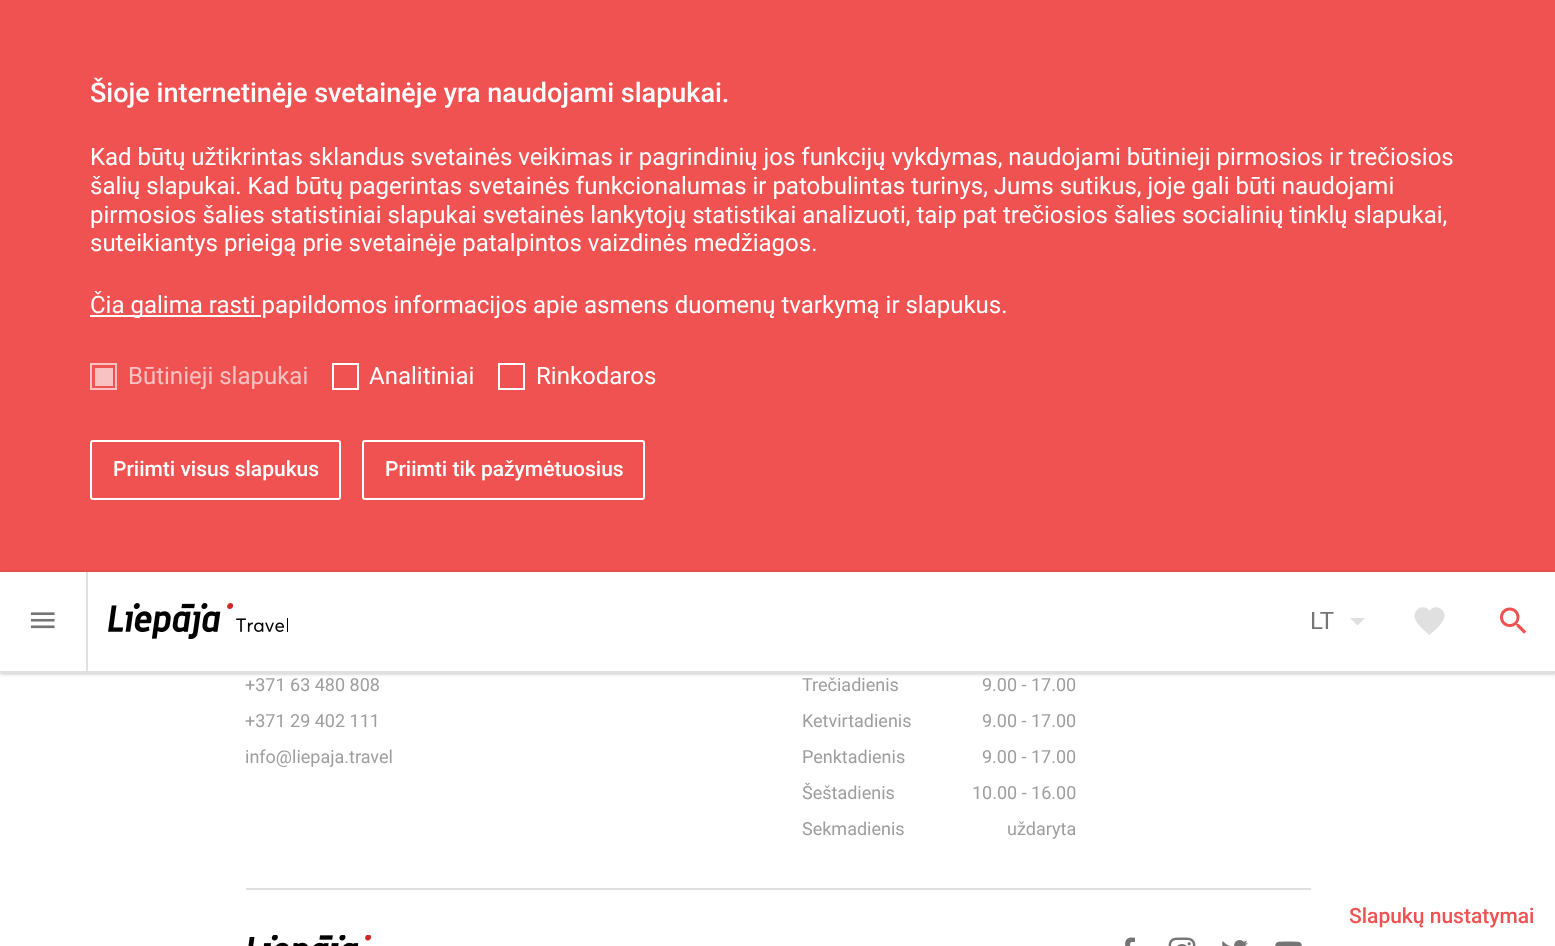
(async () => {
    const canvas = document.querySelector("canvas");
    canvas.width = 1555;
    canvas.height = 946;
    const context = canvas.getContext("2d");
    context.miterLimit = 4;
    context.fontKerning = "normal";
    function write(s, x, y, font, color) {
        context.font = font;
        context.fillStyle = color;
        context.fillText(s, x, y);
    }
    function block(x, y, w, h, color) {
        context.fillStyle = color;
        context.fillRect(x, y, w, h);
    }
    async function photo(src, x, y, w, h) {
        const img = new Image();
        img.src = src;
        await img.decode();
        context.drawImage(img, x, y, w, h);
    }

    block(0, 0, 1555, 946, "rgb(255, 255, 255)");
    block(0, 0, 1555, 572, "rgb(239, 82, 80)");
    write("Šioje internetinėje svetainėje yra naudojami slapukai.", 90, 102, "500 27px Roboto", "rgb(255, 255, 255)");
    write("Kad būtų užtikrintas sklandus svetainės veikimas ir pagrindinių jos funkcijų vykdymas, naudojami būtinieji pirmosios ir trečiosios", 90, 165, "24px Roboto", "rgb(255, 255, 255)");
    write("šalių slapukai. Kad būtų pagerintas svetainės funkcionalumas ir patobulintas turinys, Jums sutikus, joje gali būti naudojami", 90, 194, "24px Roboto", "rgb(255, 255, 255)");
    write("pirmosios šalies statistiniai slapukai svetainės lankytojų statistikai analizuoti, taip pat trečiosios šalies socialinių tinklų slapukai,", 90, 223, "24px Roboto", "rgb(255, 255, 255)");
    write("suteikiantys prieigą prie svetainėje patalpintos vaizdinės medžiagos.", 90, 251, "24px Roboto", "rgb(255, 255, 255)");
    block(90, 315, 171, 2, "rgb(255, 255, 255)");
    write("Čia galima rasti papildomos informacijos apie asmens duomenų tvarkymą ir slapukus.", 90, 313, "24px Roboto", "rgb(255, 255, 255)");
    context.strokeStyle = "rgb(249, 194, 194)";
    context.lineWidth = 2;
    context.strokeRect(91, 364, 25, 25);
    block(95, 368, 18, 18, "rgb(249, 194, 194)");
    write("Būtinieji slapukai", 128, 384, "24px Roboto", "rgb(249, 194, 194)");
    context.strokeStyle = "rgb(255, 255, 255)";
    context.strokeRect(333, 364, 25, 25);
    write("Analitiniai", 369, 384, "24px Roboto", "rgb(255, 255, 255)");
    context.strokeRect(499, 364, 25, 25);
    write("Rinkodaros", 536, 384, "24px Roboto", "rgb(255, 255, 255)");
    context.beginPath();
    context.roundRect(91, 441, 249, 58, 2);
    context.stroke();
    write("Priimti visus slapukus", 113, 476, "500 21px Roboto", "rgb(255, 255, 255)");
    context.beginPath();
    context.roundRect(363, 441, 281, 58, 2);
    context.stroke();
    write("Priimti tik pažymėtuosius", 385, 476, "500 21px Roboto", "rgb(255, 255, 255)");
    context.fillStyle = "rgba(0, 0, 0, 0.1)";
    context.filter = "blur(2px)";
    context.beginPath();
    context.rect(0, 573, 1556, 101);
    context.fill();
    context.filter = "none";
    context.fillStyle = "rgba(0, 0, 0, 0.06)";
    context.filter = "blur(1.5px)";
    context.beginPath();
    context.rect(0, 573, 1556, 101);
    context.fill();
    context.filter = "none";
    context.fillStyle = "rgba(0, 0, 0, 0.07)";
    context.filter = "blur(1.5px)";
    context.beginPath();
    context.rect(0, 573, 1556, 101);
    context.fill();
    context.filter = "none";
    block(0, 572, 1555, 99, "rgb(255, 255, 255)");
    block(0, 671, 1555, 2, "rgb(224, 224, 224)");
    block(86, 572, 2, 99, "rgb(224, 224, 224)");
    await photo("media/1.png", 30, 612, 25, 17);
    await photo("media/2.png", 108, 603, 180, 36);
    write("LT", 1310, 629, "24px Roboto", "rgb(117, 117, 117)");
    context.fillStyle = "rgb(224, 224, 224)";
    context.beginPath();
    context.moveTo(1350, 618);
    context.lineTo(1365, 618);
    context.lineTo(1357.5, 625.5);
    context.closePath();
    context.fill();
    context.beginPath();
    context.moveTo(1429.5, 635);
    context.bezierCurveTo(1425, 631, 1418, 625.5, 1415.5, 620);
    context.bezierCurveTo(1411, 611, 1422.5, 602.5, 1429.5, 610.5);
    context.bezierCurveTo(1436, 603, 1447.5, 610, 1444, 619);
    context.bezierCurveTo(1441, 625.5, 1434.5, 630.5, 1429.5, 635);
    context.closePath();
    context.fill();
    await photo("media/3.png", 1500, 607, 27, 27);
    write("Slapukų nustatymai", 1349, 923, "500 21px Roboto", "rgb(239, 82, 80)");
    write("+371 63 480 808", 245, 691, "18px Roboto", "rgb(158, 158, 158)");
    write("+371 29 402 111", 245, 727, "18px Roboto", "rgb(158, 158, 158)");
    write("info@liepaja.travel", 245, 763, "18px Roboto", "rgb(158, 158, 158)");
    write("Trečiadienis", 802, 691, "18px Roboto", "rgb(158, 158, 158)");
    write("9.00 - 17.00", 982, 691, "18px Roboto", "rgb(158, 158, 158)");
    write("Ketvirtadienis", 802, 727, "18px Roboto", "rgb(158, 158, 158)");
    write("9.00 - 17.00", 982, 727, "18px Roboto", "rgb(158, 158, 158)");
    write("Penktadienis", 802, 763, "18px Roboto", "rgb(158, 158, 158)");
    write("9.00 - 17.00", 982, 763, "18px Roboto", "rgb(158, 158, 158)");
    write("Šeštadienis", 802, 799, "18px Roboto", "rgb(158, 158, 158)");
    write("10.00 - 16.00", 972, 799, "18px Roboto", "rgb(158, 158, 158)");
    write("Sekmadienis", 802, 835, "18px Roboto", "rgb(158, 158, 158)");
    write("uždaryta", 1007, 835, "18px Roboto", "rgb(158, 158, 158)");
    block(246, 888, 1065, 2, "rgb(224, 224, 224)");
    await photo("media/4.png", 248, 935, 124, 11);
    await photo("media/5.png", 1125, 937, 10, 9);
    await photo("media/6.png", 1168, 937, 28, 9);
    await photo("media/7.png", 1222, 940, 26, 6);
    await photo("media/8.png", 1275, 941, 27, 5);
})();
